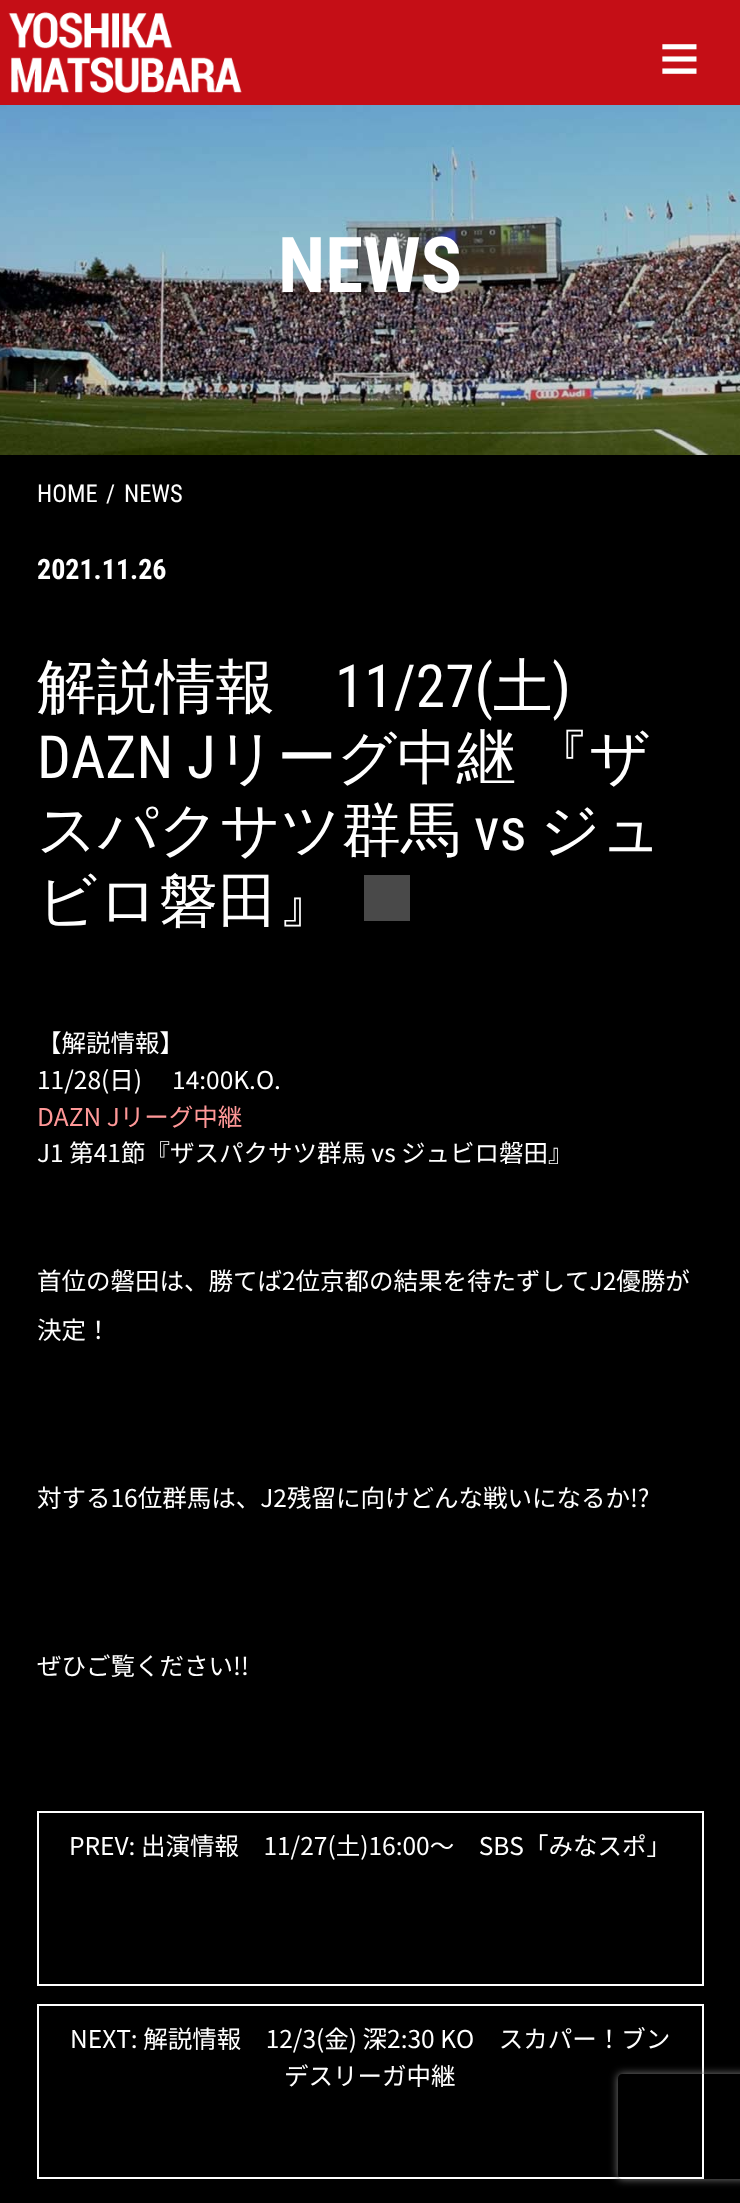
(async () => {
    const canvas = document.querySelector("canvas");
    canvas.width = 740;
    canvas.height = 2203;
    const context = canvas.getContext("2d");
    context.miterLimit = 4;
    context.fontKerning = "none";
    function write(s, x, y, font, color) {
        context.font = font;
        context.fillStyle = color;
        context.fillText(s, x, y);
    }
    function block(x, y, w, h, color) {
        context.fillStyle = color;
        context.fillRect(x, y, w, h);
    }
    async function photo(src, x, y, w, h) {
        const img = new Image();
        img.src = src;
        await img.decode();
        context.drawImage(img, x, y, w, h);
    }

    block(0, 0, 740, 2203, "rgb(0, 0, 0)");
    block(0, 0, 740, 105, "rgb(197, 14, 22)");
    await photo("media/1.png", 8, 12, 234, 81);
    write("≡", 659, 82, "70px Liberation Sans", "rgb(255, 255, 255)");
    await photo("media/2.png", 0, 105, 740, 350);
    write("NEWS", 278, 292, "bold 77px Roboto Condensed", "rgb(255, 255, 255)");
    write("HOME", 37, 502, "24.5px Roboto Condensed", "rgb(255, 255, 255)");
    write("/", 106, 502, "24.5px Roboto Condensed", "rgb(255, 255, 255)");
    write("NEWS", 124, 502, "24.5px Roboto Condensed", "rgb(255, 255, 255)");
    write("2021.11.26", 37, 579, "bold 28px Roboto Condensed", "rgb(255, 255, 255)");
    write("解説情報", 37, 707, "500 59.5px WenQuanYi Zen Hei", "rgb(255, 255, 255)");
    write("11/27(", 335, 707, "59.5px Roboto Condensed", "rgb(255, 255, 255)");
    write("土", 493, 707, "500 59.5px WenQuanYi Zen Hei", "rgb(255, 255, 255)");
    write(")", 552, 707, "59.5px Roboto Condensed", "rgb(255, 255, 255)");
    write("DAZN J", 37, 778, "59.5px Roboto Condensed", "rgb(255, 255, 255)");
    write("リーグ中継", 216, 778, "500 59.5px WenQuanYi Zen Hei", "rgb(255, 255, 255)");
    write("『ザ", 530, 778, "500 59.5px WenQuanYi Zen Hei", "rgb(255, 255, 255)");
    write("スパクサツ群馬", 37, 850, "500 59.5px WenQuanYi Zen Hei", "rgb(255, 255, 255)");
    write("vs", 474, 850, "59.5px Roboto Condensed", "rgb(255, 255, 255)");
    write("ジュ", 540, 850, "500 59.5px WenQuanYi Zen Hei", "rgb(255, 255, 255)");
    write("ビロ磐田』", 37, 921, "500 59.5px WenQuanYi Zen Hei", "rgb(255, 255, 255)");
    block(364, 875, 46, 46, "rgb(73, 73, 73)");
    write("【解説情報】", 37, 1052, "24.5px Noto Sans JP", "rgb(255, 255, 255)");
    write("11/28(日)　 14:00K.O.", 37, 1089, "24.5px Noto Sans JP", "rgb(255, 255, 255)");
    write("DAZN Jリーグ中継", 37, 1126, "24.5px Noto Sans JP", "rgb(255, 152, 152)");
    write("J1 第41節『ザスパクサツ群馬 vs ジュビロ磐田』", 37, 1162, "24.5px Noto Sans JP", "rgb(255, 255, 255)");
    write("首位の磐田は、勝てば2位京都の結果を待たずしてJ2優勝が", 37, 1290, "24.5px Noto Sans JP", "rgb(255, 255, 255)");
    write("決定！", 37, 1339, "24.5px Noto Sans JP", "rgb(255, 255, 255)");
    write("対する16位群馬は、J2残留に向けどんな戦いになるか!?", 37, 1507, "24.5px Noto Sans JP", "rgb(255, 255, 255)");
    write("ぜひご覧ください!!", 37, 1675, "24.5px Noto Sans JP", "rgb(255, 255, 255)");
    context.strokeStyle = "rgb(255, 255, 255)";
    context.lineWidth = 2;
    context.strokeRect(38, 1812, 665, 173);
    write("PREV: 出演情報　11/27(土)16:00～　SBS「みなスポ」", 69, 1855, "24.5px Noto Sans JP", "rgb(255, 255, 255)");
    context.strokeRect(38, 2005, 665, 173);
    write("NEXT: 解説情報　12/3(金) 深2:30 KO　スカパー！ブン", 70, 2048, "24.5px Noto Sans JP", "rgb(255, 255, 255)");
    write("デスリーガ中継", 284, 2085, "24.5px Noto Sans JP", "rgb(255, 255, 255)");
    context.save();
    context.beginPath();
    context.moveTo(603, 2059);
    context.lineTo(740, 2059);
    context.lineTo(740, 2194);
    context.lineTo(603, 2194);
    context.closePath();
    context.moveTo(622, 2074);
    context.lineTo(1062, 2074);
    context.bezierCurveTo(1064, 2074, 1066, 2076, 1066, 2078);
    context.lineTo(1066, 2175);
    context.bezierCurveTo(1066, 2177, 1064, 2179, 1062, 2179);
    context.lineTo(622, 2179);
    context.bezierCurveTo(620, 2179, 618, 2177, 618, 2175);
    context.lineTo(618, 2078);
    context.bezierCurveTo(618, 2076, 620, 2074, 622, 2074);
    context.closePath();
    context.clip("evenodd");
    context.fillStyle = "rgb(128, 128, 128)";
    context.filter = "blur(4.5px)";
    context.beginPath();
    context.roundRect(618, 2074, 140, 105, 4);
    context.fill();
    context.filter = "none";
    context.restore();
})();
